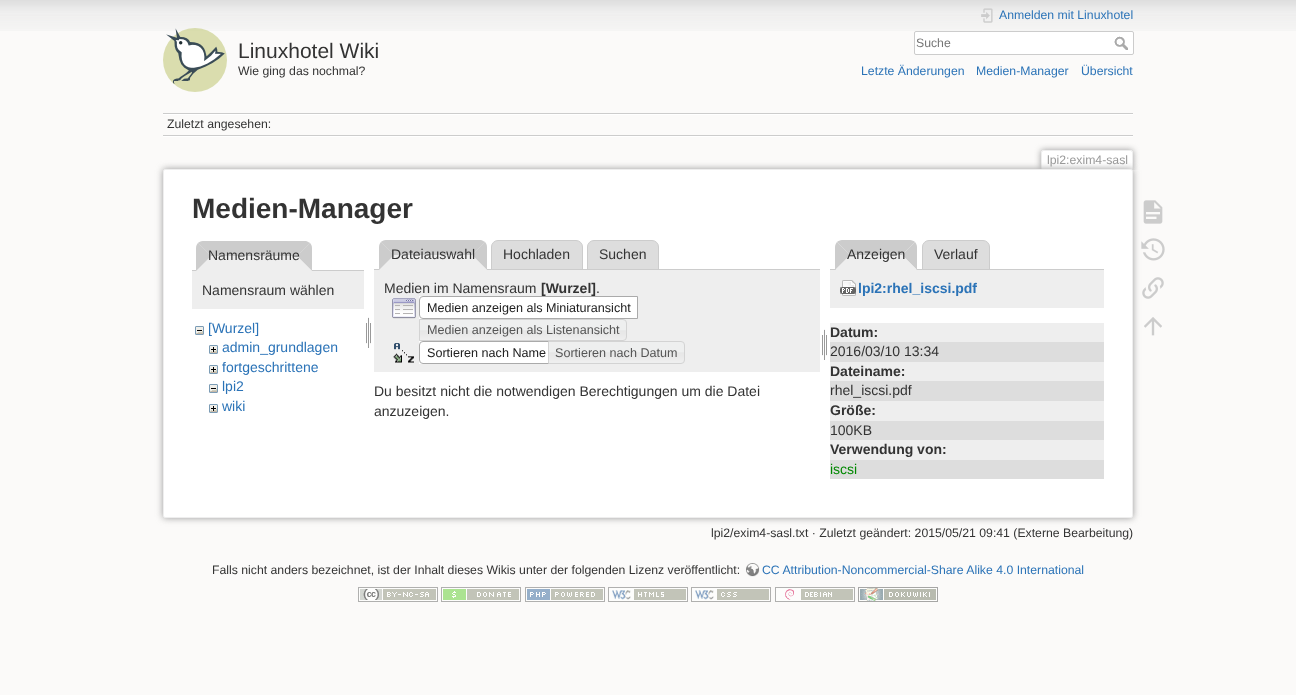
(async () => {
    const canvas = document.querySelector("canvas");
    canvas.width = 1296;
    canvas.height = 695;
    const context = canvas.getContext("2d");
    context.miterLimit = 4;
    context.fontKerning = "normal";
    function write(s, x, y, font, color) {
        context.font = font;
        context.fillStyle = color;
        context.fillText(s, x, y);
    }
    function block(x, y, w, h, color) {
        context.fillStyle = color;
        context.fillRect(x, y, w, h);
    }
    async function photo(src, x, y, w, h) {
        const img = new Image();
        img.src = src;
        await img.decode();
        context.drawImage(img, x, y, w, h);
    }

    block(0, 0, 1296, 695, "rgb(251, 250, 249)");
    await photo("media/1.png", 0, 0, 1296, 31);
    await photo("media/2.png", 163, 28, 64, 64);
    write("Linuxhotel Wiki", 238, 58, "21px Liberation Sans", "rgb(51, 51, 51)");
    write("Wie ging das nochmal?", 238, 75, "12.25px Liberation Sans", "rgb(51, 51, 51)");
    await photo("media/3.png", 981, 8, 12, 15);
    write("Anmelden mit Linuxhotel", 999, 19, "12.25px Liberation Sans", "rgb(43, 115, 183)");
    context.fillStyle = "rgb(255, 255, 255)";
    context.beginPath();
    context.roundRect(914.5, 31.5, 219, 23, 1.5);
    context.fill();
    context.strokeStyle = "rgb(204, 204, 204)";
    context.stroke();
    write("Suche", 916, 47, "12.25px Liberation Sans", "rgb(117, 117, 117)");
    await photo("media/4.png", 1114, 36, 14, 14);
    write("Letzte Änderungen", 861, 75, "12.25px Liberation Sans", "rgb(43, 115, 183)");
    write("Medien-Manager", 976, 75, "12.25px Liberation Sans", "rgb(43, 115, 183)");
    write("Übersicht", 1081, 75, "12.25px Liberation Sans", "rgb(43, 115, 183)");
    block(163, 113, 970, 1, "rgb(204, 204, 204)");
    block(163, 136, 970, 1, "rgb(255, 255, 255)");
    block(163, 114, 970, 1, "rgb(255, 255, 255)");
    block(163, 135, 970, 1, "rgb(204, 204, 204)");
    write("Zuletzt angesehen:", 167, 128, "12.25px Liberation Sans", "rgb(51, 51, 51)");
    context.save();
    context.beginPath();
    context.rect(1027, 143, 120, 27);
    context.clip();
    context.fillStyle = "rgb(153, 153, 153)";
    context.filter = "blur(3px)";
    context.beginPath();
    context.roundRect(1041, 150, 92, 20, 2);
    context.fill();
    context.filter = "none";
    context.restore();
    context.fillStyle = "rgb(255, 255, 255)";
    context.beginPath();
    context.roundRect(1042, 151, 90, 19, [1, 1, 0, 0]);
    context.fill();
    block(1042, 150, 90, 1, "rgb(238, 238, 238)");
    block(1132, 151, 1, 19, "rgb(238, 238, 238)");
    block(1041, 151, 1, 19, "rgb(238, 238, 238)");
    write("lpi2:exim4-sasl", 1047, 164, "12.25px Liberation Sans", "rgb(153, 153, 153)");
    context.filter = "blur(3.5px)";
    context.beginPath();
    context.roundRect(163, 169, 970, 349, 2);
    context.fill();
    context.filter = "none";
    context.fillStyle = "rgb(255, 255, 255)";
    context.beginPath();
    context.roundRect(163.5, 169.5, 969, 348, 1.5);
    context.fill();
    context.strokeStyle = "rgb(238, 238, 238)";
    context.stroke();
    write("Medien-Manager", 192, 218, "bold 28px Liberation Sans", "rgb(51, 51, 51)");
    block(192, 270, 172, 1, "rgb(204, 204, 204)");
    context.fillStyle = "rgb(238, 238, 238)";
    context.beginPath();
    context.roundRect(196, 241, 116, 30, [7, 7, 0, 0]);
    context.fill();
    context.fillStyle = "rgb(204, 204, 204)";
    context.beginPath();
    context.moveTo(203, 241);
    context.lineTo(306, 241);
    context.lineTo(310, 243);
    context.lineTo(297, 256);
    context.lineTo(211, 256);
    context.lineTo(198, 243);
    context.bezierCurveTo(199, 242, 201, 241, 203, 241);
    context.closePath();
    context.fill();
    context.beginPath();
    context.moveTo(310, 243);
    context.lineTo(297, 256);
    context.lineTo(312, 271);
    context.lineTo(312, 248);
    context.bezierCurveTo(312, 246, 311, 244, 310, 243);
    context.closePath();
    context.fill();
    context.fillStyle = "rgb(238, 238, 238)";
    context.beginPath();
    context.moveTo(312, 271);
    context.lineTo(297, 256);
    context.lineTo(211, 256);
    context.lineTo(196, 271);
    context.closePath();
    context.fill();
    context.fillStyle = "rgb(204, 204, 204)";
    context.beginPath();
    context.moveTo(196, 271);
    context.lineTo(196, 248);
    context.bezierCurveTo(196, 246, 197, 244, 198, 243);
    context.lineTo(211, 256);
    context.closePath();
    context.fill();
    write("Namensräume", 208, 260, "14px Liberation Sans", "rgb(51, 51, 51)");
    block(192, 271, 172, 38, "rgb(238, 238, 238)");
    write("Namensraum wählen", 202, 295, "14px Liberation Sans", "rgb(51, 51, 51)");
    await photo("media/5.png", 195, 326, 9, 9);
    write("[Wurzel]", 208, 333, "14px Liberation Sans", "rgb(43, 115, 183)");
    await photo("media/6.png", 209, 345, 9, 9);
    write("admin_grundlagen", 222, 352, "14px Liberation Sans", "rgb(43, 115, 183)");
    await photo("media/6.png", 209, 365, 9, 9);
    write("fortgeschrittene", 222, 372, "14px Liberation Sans", "rgb(43, 115, 183)");
    await photo("media/5.png", 209, 384, 9, 9);
    write("lpi2", 222, 391, "14px Liberation Sans", "rgb(43, 115, 183)");
    await photo("media/6.png", 209, 404, 9, 9);
    write("wiki", 222, 411, "14px Liberation Sans", "rgb(43, 115, 183)");
    await photo("media/7.png", 366, 317, 5, 31);
    context.fillStyle = "rgb(221, 221, 221)";
    context.beginPath();
    context.roundRect(491.5, 240.5, 91, 29, [6.5, 6.5, 0, 0]);
    context.fill();
    context.strokeStyle = "rgb(204, 204, 204)";
    context.stroke();
    context.beginPath();
    context.roundRect(587.5, 240.5, 71, 29, [6.5, 6.5, 0, 0]);
    context.fill();
    context.stroke();
    block(374, 269, 446, 1, "rgb(204, 204, 204)");
    context.fillStyle = "rgb(238, 238, 238)";
    context.beginPath();
    context.roundRect(379, 240, 108, 30, [7, 7, 0, 0]);
    context.fill();
    context.fillStyle = "rgb(204, 204, 204)";
    context.beginPath();
    context.moveTo(386, 240);
    context.lineTo(481, 240);
    context.lineTo(485, 242);
    context.lineTo(472, 255);
    context.lineTo(394, 255);
    context.lineTo(381, 242);
    context.bezierCurveTo(382, 241, 384, 240, 386, 240);
    context.closePath();
    context.fill();
    context.beginPath();
    context.moveTo(485, 242);
    context.lineTo(472, 255);
    context.lineTo(487, 270);
    context.lineTo(487, 247);
    context.bezierCurveTo(487, 245, 486, 243, 485, 242);
    context.closePath();
    context.fill();
    context.fillStyle = "rgb(238, 238, 238)";
    context.beginPath();
    context.moveTo(487, 270);
    context.lineTo(472, 255);
    context.lineTo(394, 255);
    context.lineTo(379, 270);
    context.closePath();
    context.fill();
    context.fillStyle = "rgb(204, 204, 204)";
    context.beginPath();
    context.moveTo(379, 270);
    context.lineTo(379, 247);
    context.bezierCurveTo(379, 245, 380, 243, 381, 242);
    context.lineTo(394, 255);
    context.closePath();
    context.fill();
    write("Dateiauswahl", 391, 259, "14px Liberation Sans", "rgb(51, 51, 51)");
    write("Hochladen", 503, 259, "14px Liberation Sans", "rgb(51, 51, 51)");
    write("Suchen", 599, 259, "14px Liberation Sans", "rgb(51, 51, 51)");
    block(374, 270, 446, 102, "rgb(238, 238, 238)");
    write("Medien im Namensraum", 384, 293, "14px Liberation Sans", "rgb(51, 51, 51)");
    write("[Wurzel]", 541, 293, "bold 14px Liberation Sans", "rgb(51, 51, 51)");
    write(".", 596, 293, "14px Liberation Sans", "rgb(51, 51, 51)");
    await photo("media/8.png", 392, 298, 24, 21);
    block(419, 296, 218, 23, "rgb(255, 255, 255)");
    context.beginPath();
    context.roundRect(419.5, 296.5, 218, 22, [3.5, 0, 0, 3.5]);
    context.strokeStyle = "rgb(170, 170, 170)";
    context.stroke();
    write("Medien anzeigen als Miniaturansicht", 427, 312, "12.6px Liberation Sans", "rgb(33, 33, 33)");
    await photo("media/9.png", 420, 319, 207, 22);
    context.beginPath();
    context.roundRect(419.5, 319.5, 207, 21, [0, 3.5, 3.5, 0]);
    context.strokeStyle = "rgb(211, 211, 211)";
    context.stroke();
    write("Medien anzeigen als Listenansicht", 427, 334, "12.6px Liberation Sans", "rgb(85, 85, 85)");
    await photo("media/10.png", 393, 343, 21, 20);
    block(419, 341, 129, 23, "rgb(255, 255, 255)");
    context.beginPath();
    context.roundRect(419.5, 341.5, 133, 22, [3.5, 0, 0, 3.5]);
    context.strokeStyle = "rgb(170, 170, 170)";
    context.stroke();
    write("Sortieren nach Name", 427, 357, "12.6px Liberation Sans", "rgb(33, 33, 33)");
    await photo("media/11.png", 549, 341, 136, 23);
    context.beginPath();
    context.roundRect(548.5, 341.5, 136, 22, [0, 3.5, 3.5, 0]);
    context.strokeStyle = "rgb(211, 211, 211)";
    context.stroke();
    write("Sortieren nach Datum", 555, 357, "12.6px Liberation Sans", "rgb(85, 85, 85)");
    await photo("media/7.png", 822, 329, 5, 31);
    write("Du besitzt nicht die notwendigen Berechtigungen um die Datei", 374, 396, "14px Liberation Sans", "rgb(51, 51, 51)");
    write("anzuzeigen.", 374, 416, "14px Liberation Sans", "rgb(51, 51, 51)");
    context.fillStyle = "rgb(204, 204, 204)";
    context.beginPath();
    context.moveTo(842, 240);
    context.lineTo(910, 240);
    context.bezierCurveTo(912, 240, 914, 241, 915, 242);
    context.lineTo(902, 255);
    context.lineTo(850, 255);
    context.lineTo(837, 242);
    context.bezierCurveTo(838, 241, 840, 240, 842, 240);
    context.closePath();
    context.fill();
    context.fillStyle = "rgb(221, 221, 221)";
    context.beginPath();
    context.roundRect(922.5, 240.5, 67, 29, [6.5, 6.5, 0, 0]);
    context.fill();
    context.strokeStyle = "rgb(204, 204, 204)";
    context.stroke();
    block(830, 269, 274, 1, "rgb(204, 204, 204)");
    context.beginPath();
    context.moveTo(915, 242);
    context.lineTo(902, 255);
    context.lineTo(917, 270);
    context.lineTo(917, 247);
    context.bezierCurveTo(917, 245, 916, 243, 915, 242);
    context.closePath();
    context.fill();
    context.fillStyle = "rgb(238, 238, 238)";
    context.beginPath();
    context.moveTo(917, 270);
    context.lineTo(902, 255);
    context.lineTo(850, 255);
    context.lineTo(835, 270);
    context.closePath();
    context.fill();
    context.fillStyle = "rgb(204, 204, 204)";
    context.beginPath();
    context.moveTo(835, 270);
    context.lineTo(835, 247);
    context.bezierCurveTo(835, 245, 836, 243, 837, 242);
    context.lineTo(850, 255);
    context.closePath();
    context.fill();
    write("Anzeigen", 847, 259, "14px Liberation Sans", "rgb(51, 51, 51)");
    write("Verlauf", 934, 259, "14px Liberation Sans", "rgb(51, 51, 51)");
    block(830, 270, 274, 38, "rgb(238, 238, 238)");
    await photo("media/12.png", 840, 280, 16, 16);
    write("lpi2:rhel_iscsi.pdf", 858, 293, "bold 14px Liberation Sans", "rgb(43, 115, 183)");
    block(830, 323, 274, 19, "rgb(238, 238, 238)");
    write("Datum:", 830, 337, "bold 14px Liberation Sans", "rgb(51, 51, 51)");
    block(830, 342, 274, 20, "rgb(221, 221, 221)");
    write("2016/03/10 13:34", 830, 356, "14px Liberation Sans", "rgb(51, 51, 51)");
    block(830, 362, 274, 19, "rgb(238, 238, 238)");
    write("Dateiname:", 830, 376, "bold 14px Liberation Sans", "rgb(51, 51, 51)");
    block(830, 381, 274, 20, "rgb(221, 221, 221)");
    write("rhel_iscsi.pdf", 830, 395, "14px Liberation Sans", "rgb(51, 51, 51)");
    block(830, 401, 274, 20, "rgb(238, 238, 238)");
    write("Größe:", 830, 415, "bold 14px Liberation Sans", "rgb(51, 51, 51)");
    block(830, 421, 274, 19, "rgb(221, 221, 221)");
    write("100KB", 830, 435, "14px Liberation Sans", "rgb(51, 51, 51)");
    block(830, 440, 274, 20, "rgb(238, 238, 238)");
    write("Verwendung von:", 830, 454, "bold 14px Liberation Sans", "rgb(51, 51, 51)");
    block(830, 460, 274, 19, "rgb(221, 221, 221)");
    write("iscsi", 830, 474, "14px Liberation Sans", "rgb(0, 136, 0)");
    write("lpi2/exim4-sasl.txt · Zuletzt geändert: 2015/05/21 09:41 (Externe Bearbeitung)", 711, 537, "12.25px Liberation Sans", "rgb(51, 51, 51)");
    await photo("media/13.png", 1143, 200, 20, 24);
    await photo("media/14.png", 1141, 238, 24, 23);
    await photo("media/15.png", 1142, 277, 22, 22);
    await photo("media/16.png", 1144, 317, 18, 19);
    write("Falls nicht anders bezeichnet, ist der Inhalt dieses Wikis unter der folgenden Lizenz veröffentlicht:", 212, 574, "12.25px Liberation Sans", "rgb(51, 51, 51)");
    await photo("media/17.png", 746, 563, 14, 14);
    write("CC Attribution-Noncommercial-Share Alike 4.0 International", 762, 574, "12.25px Liberation Sans", "rgb(43, 115, 183)");
    await photo("media/18.png", 358, 587, 80, 15);
    await photo("media/19.png", 441, 587, 80, 15);
    await photo("media/20.png", 525, 587, 80, 15);
    await photo("media/21.png", 608, 587, 80, 15);
    await photo("media/22.png", 691, 587, 80, 15);
    await photo("media/23.png", 775, 587, 80, 15);
    await photo("media/24.png", 858, 587, 80, 15);
})();
